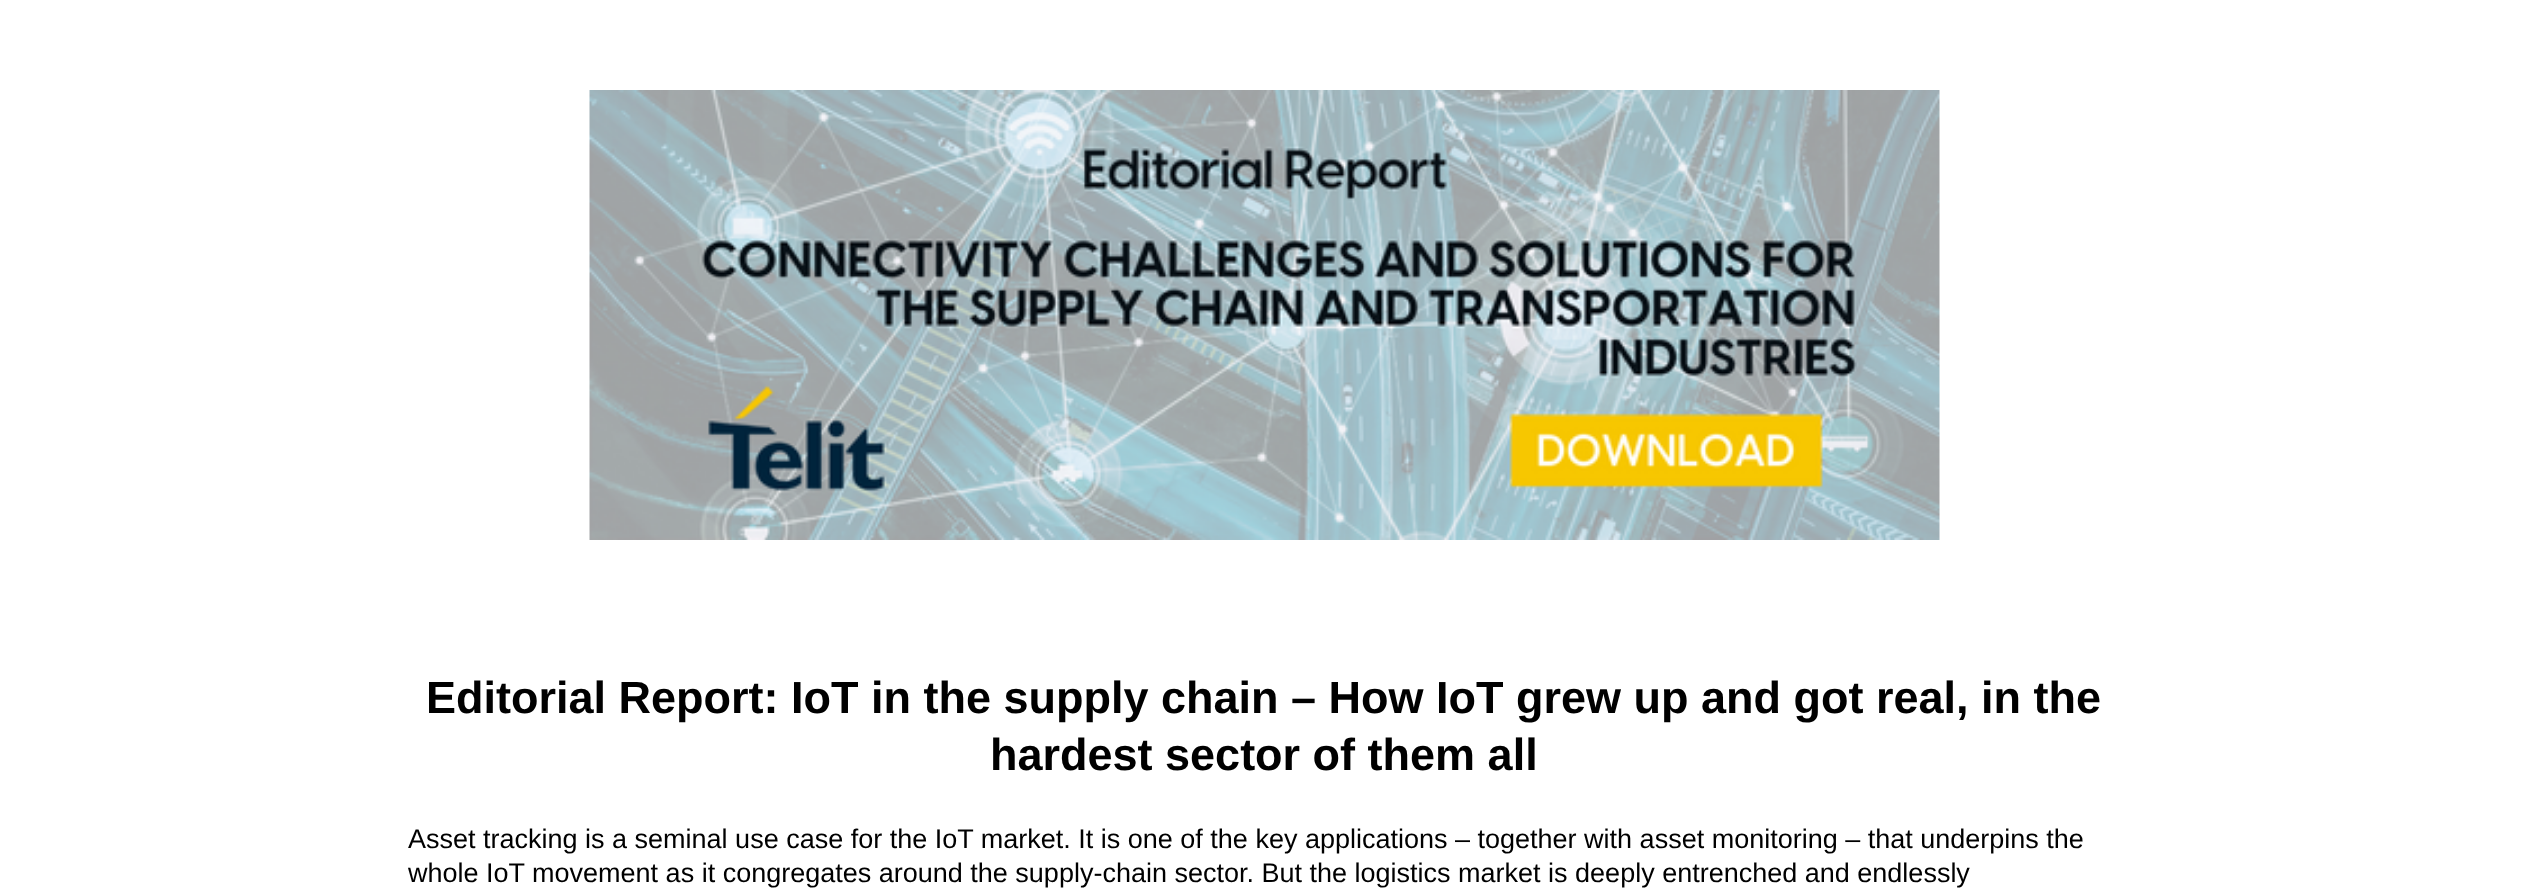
(async () => {
    const canvas = document.querySelector("canvas");
    canvas.width = 2526;
    canvas.height = 889;
    const context = canvas.getContext("2d");
    context.miterLimit = 4;
    context.fontKerning = "normal";
    function write(s, x, y, font, color) {
        context.font = font;
        context.fillStyle = color;
        context.fillText(s, x, y);
    }
    function block(x, y, w, h, color) {
        context.fillStyle = color;
        context.fillRect(x, y, w, h);
    }
    async function photo(src, x, y, w, h) {
        const img = new Image();
        img.src = src;
        await img.decode();
        context.drawImage(img, x, y, w, h);
    }

    block(0, 0, 2526, 889, "rgb(255, 255, 255)");
    await photo("media/1.png", 589, 90, 1351, 450);
    write("Editorial Report: IoT in the supply chain – How IoT grew up and got real, in the", 426, 713, "bold 45px Liberation Sans", "rgb(0, 0, 0)");
    write("hardest sector of them all", 990, 770, "bold 45px Liberation Sans", "rgb(0, 0, 0)");
    write("Asset tracking is a seminal use case for the IoT market. It is one of the key applications – together with asset monitoring – that underpins the", 408, 848, "27px Liberation Sans", "rgb(0, 0, 0)");
    write("whole IoT movement as it congregates around the supply-chain sector. But the logistics market is deeply entrenched and endlessly", 408, 882, "27px Liberation Sans", "rgb(0, 0, 0)");
})();
